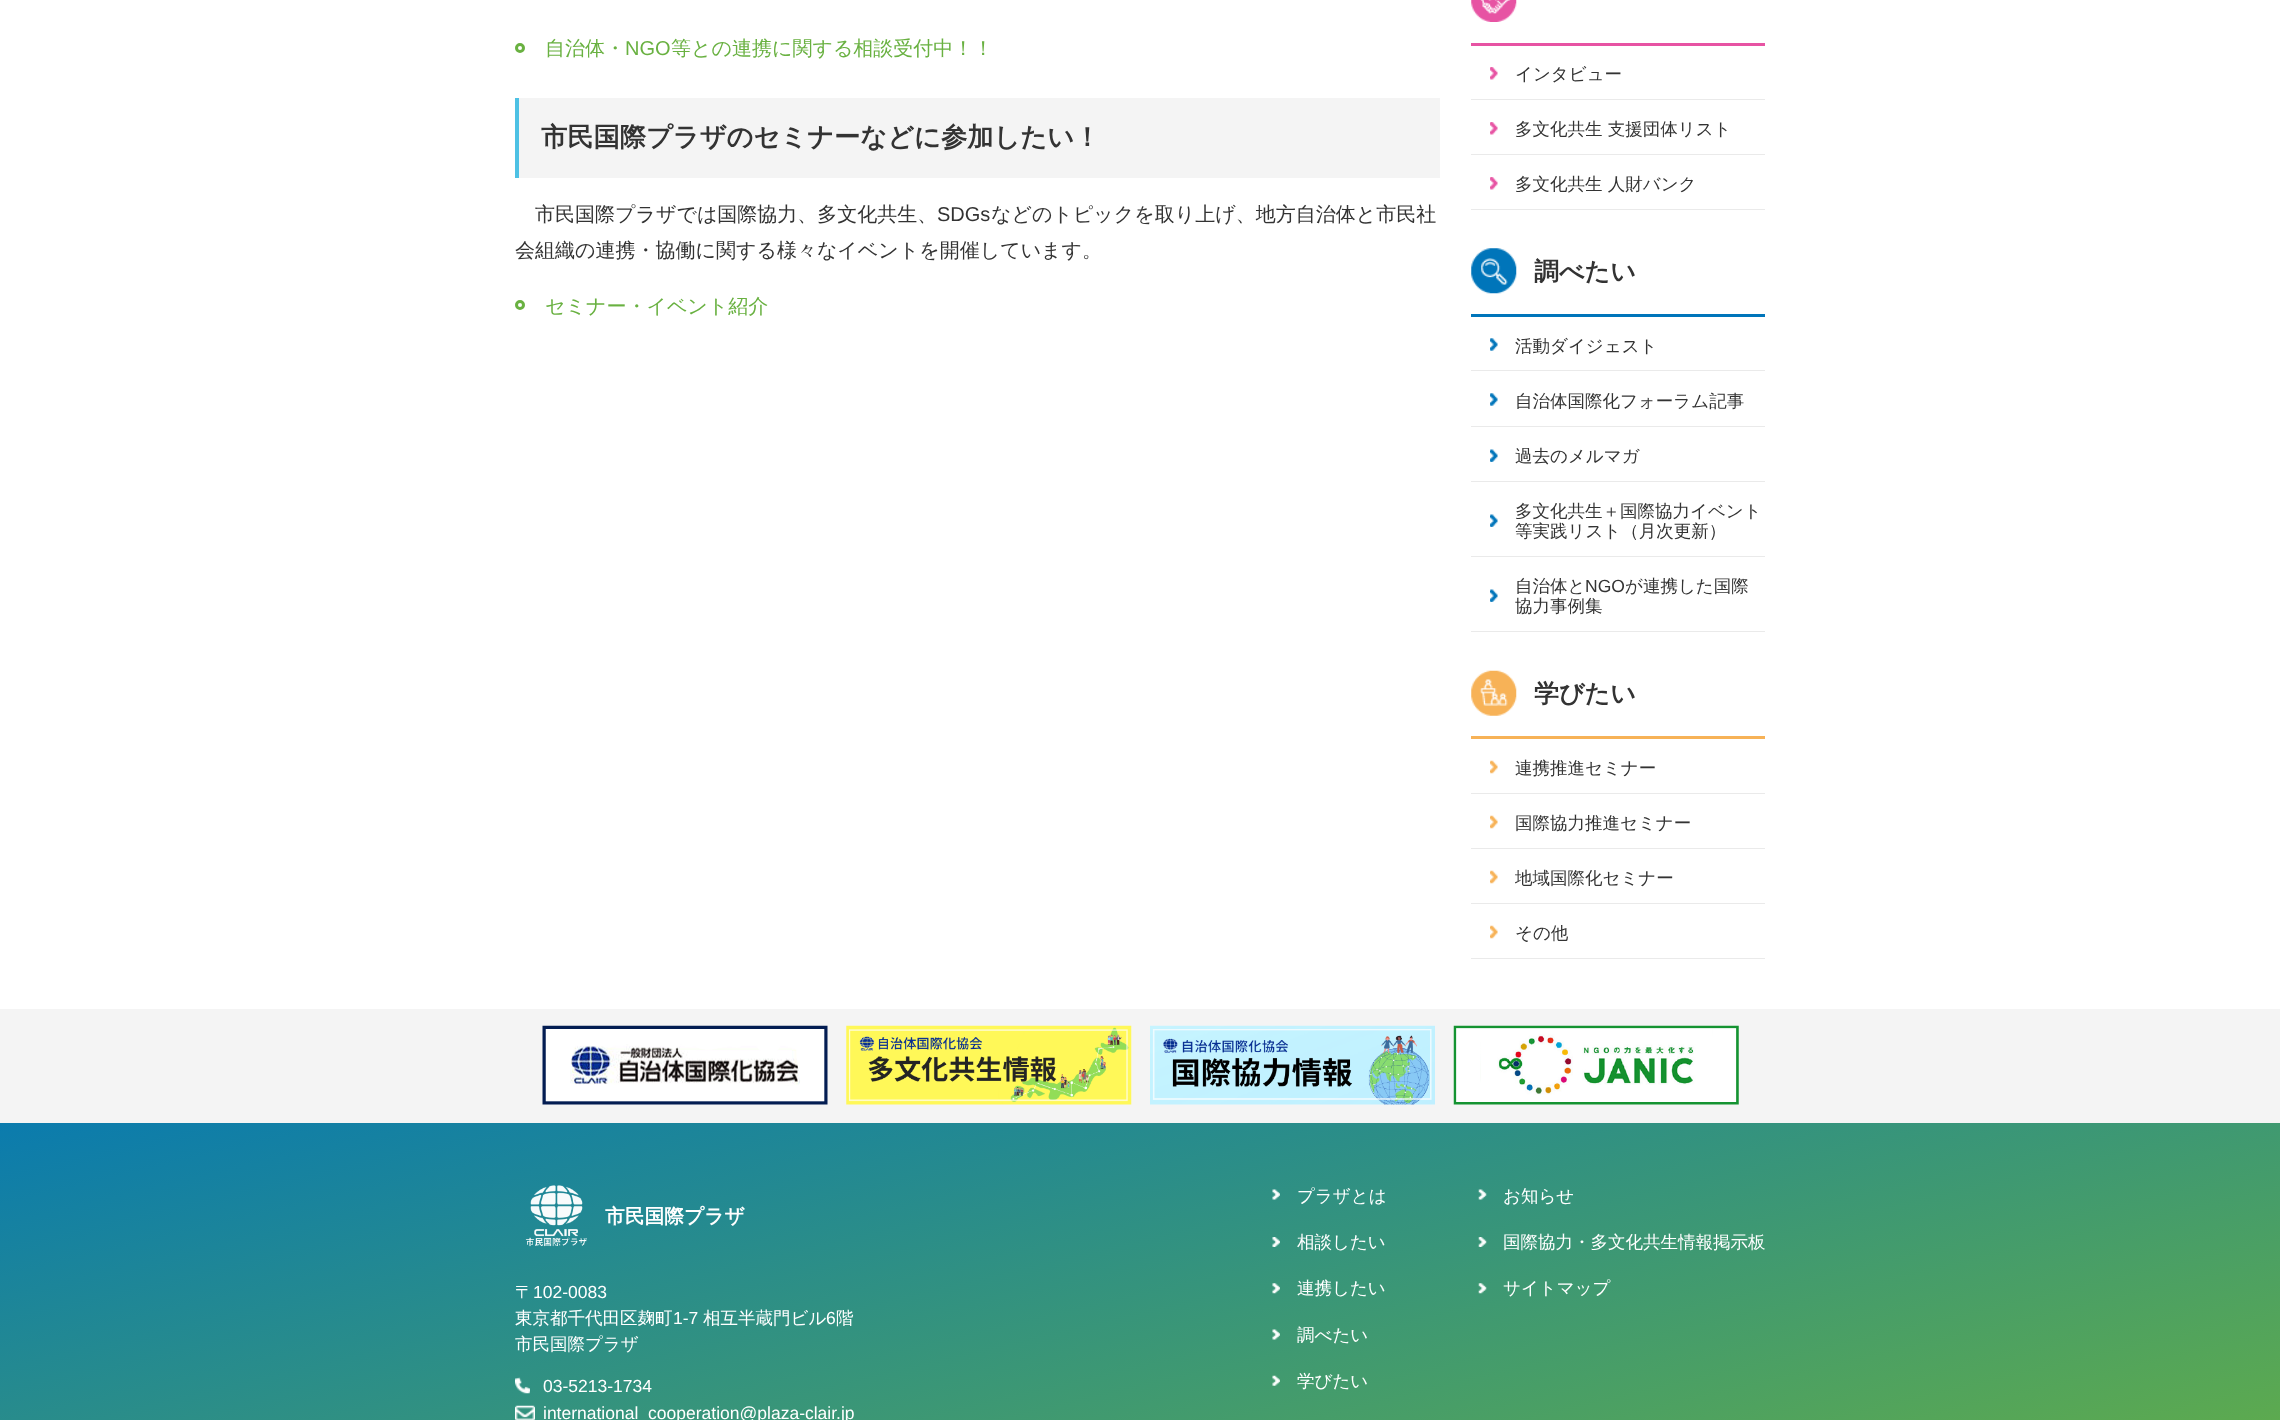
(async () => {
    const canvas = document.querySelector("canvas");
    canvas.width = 2280;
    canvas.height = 1420;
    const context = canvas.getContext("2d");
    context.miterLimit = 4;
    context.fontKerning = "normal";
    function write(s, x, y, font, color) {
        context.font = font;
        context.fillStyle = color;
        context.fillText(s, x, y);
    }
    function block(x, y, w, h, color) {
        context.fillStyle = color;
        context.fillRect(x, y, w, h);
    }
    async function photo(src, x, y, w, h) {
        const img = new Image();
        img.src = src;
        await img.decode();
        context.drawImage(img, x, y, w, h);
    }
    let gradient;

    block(0, 0, 2280, 1420, "rgb(255, 255, 255)");
    context.beginPath();
    context.arc(520, 48, 3.5, 0, Math.PI * 2);
    context.strokeStyle = "rgb(105, 177, 65)";
    context.lineWidth = 3;
    context.stroke();
    write("自治体・", 545, 55, "500 20px WenQuanYi Zen Hei", "rgb(105, 177, 65)");
    write("NGO", 625, 55, "20px Liberation Sans", "rgb(105, 177, 65)");
    write("等との連携に関する相談受付中！！", 671, 55, "500 20px WenQuanYi Zen Hei", "rgb(105, 177, 65)");
    block(519, 98, 921, 80, "rgb(244, 244, 244)");
    block(515, 98, 4, 80, "rgb(77, 193, 228)");
    write("市民国際プラザのセミナーなどに参加したい！", 541, 146, "bold 26.25px WenQuanYi Zen Hei", "rgb(51, 51, 51)");
    write("市民国際プラザでは国際協力、多文化共生、", 535, 221, "500 20px WenQuanYi Zen Hei", "rgb(51, 51, 51)");
    write("SDGs", 937, 221, "20px Liberation Sans", "rgb(51, 51, 51)");
    write("などのトピックを取り上げ、地方自治体と市民社", 991, 221, "500 20px WenQuanYi Zen Hei", "rgb(51, 51, 51)");
    write("会組織の連携・協働に関する様々なイベントを開催しています。", 515, 257, "500 20px WenQuanYi Zen Hei", "rgb(51, 51, 51)");
    context.beginPath();
    context.arc(520, 305, 3.5, 0, Math.PI * 2);
    context.stroke();
    write("セミナー・イベント紹介", 545, 313, "500 20px WenQuanYi Zen Hei", "rgb(105, 177, 65)");
    block(1471, 43, 294, 3, "rgb(231, 83, 163)");
    await photo("media/1.png", 1471, 0, 46, 22);
    block(1471, 99, 294, 1, "rgb(234, 234, 234)");
    await photo("media/2.png", 1490, 67, 8, 13);
    write("インタビュー", 1515, 80, "500 17.5px WenQuanYi Zen Hei", "rgb(51, 51, 51)");
    block(1471, 154, 294, 1, "rgb(234, 234, 234)");
    await photo("media/2.png", 1490, 122, 8, 13);
    write("多文化共生 支援団体リスト", 1515, 135, "500 17.5px WenQuanYi Zen Hei", "rgb(51, 51, 51)");
    block(1471, 209, 294, 1, "rgb(234, 234, 234)");
    await photo("media/2.png", 1490, 177, 8, 13);
    write("多文化共生 人財バンク", 1515, 190, "500 17.5px WenQuanYi Zen Hei", "rgb(51, 51, 51)");
    block(1471, 314, 294, 3, "rgb(0, 117, 186)");
    await photo("media/3.png", 1471, 248, 46, 46);
    write("調べたい", 1534, 280, "bold 25px WenQuanYi Zen Hei", "rgb(51, 51, 51)");
    block(1471, 370, 294, 1, "rgb(234, 234, 234)");
    await photo("media/4.png", 1490, 338, 8, 13);
    write("活動ダイジェスト", 1515, 352, "500 17.5px WenQuanYi Zen Hei", "rgb(51, 51, 51)");
    block(1471, 426, 294, 1, "rgb(234, 234, 234)");
    await photo("media/4.png", 1490, 393, 8, 13);
    write("自治体国際化フォーラム記事", 1515, 407, "500 17.5px WenQuanYi Zen Hei", "rgb(51, 51, 51)");
    block(1471, 481, 294, 1, "rgb(234, 234, 234)");
    await photo("media/5.png", 1490, 449, 8, 13);
    write("過去のメルマガ", 1515, 462, "500 17.5px WenQuanYi Zen Hei", "rgb(51, 51, 51)");
    block(1471, 556, 294, 1, "rgb(234, 234, 234)");
    await photo("media/5.png", 1490, 514, 8, 13);
    write("多文化共生＋国際協力イベント", 1515, 517, "500 17.5px WenQuanYi Zen Hei", "rgb(51, 51, 51)");
    write("等実践リスト（月次更新）", 1515, 537, "500 17.5px WenQuanYi Zen Hei", "rgb(51, 51, 51)");
    block(1471, 631, 294, 1, "rgb(234, 234, 234)");
    await photo("media/5.png", 1490, 589, 8, 13);
    write("自治体と", 1515, 592, "500 17.5px WenQuanYi Zen Hei", "rgb(51, 51, 51)");
    write("NGO", 1585, 592, "17.5px Liberation Sans", "rgb(51, 51, 51)");
    write("が連携した国際", 1625, 592, "500 17.5px WenQuanYi Zen Hei", "rgb(51, 51, 51)");
    write("協力事例集", 1515, 612, "500 17.5px WenQuanYi Zen Hei", "rgb(51, 51, 51)");
    block(1471, 736, 294, 3, "rgb(247, 178, 87)");
    await photo("media/6.png", 1471, 670, 46, 46);
    write("学びたい", 1534, 702, "bold 25px WenQuanYi Zen Hei", "rgb(51, 51, 51)");
    block(1471, 793, 294, 1, "rgb(234, 234, 234)");
    await photo("media/7.png", 1490, 760, 8, 14);
    write("連携推進セミナー", 1515, 774, "500 17.5px WenQuanYi Zen Hei", "rgb(51, 51, 51)");
    block(1471, 848, 294, 1, "rgb(234, 234, 234)");
    await photo("media/7.png", 1490, 815, 8, 14);
    write("国際協力推進セミナー", 1515, 829, "500 17.5px WenQuanYi Zen Hei", "rgb(51, 51, 51)");
    block(1471, 903, 294, 1, "rgb(234, 234, 234)");
    await photo("media/7.png", 1490, 870, 8, 14);
    write("地域国際化セミナー", 1515, 884, "500 17.5px WenQuanYi Zen Hei", "rgb(51, 51, 51)");
    block(1471, 958, 294, 1, "rgb(234, 234, 234)");
    await photo("media/7.png", 1490, 925, 8, 14);
    write("その他", 1515, 939, "500 17.5px WenQuanYi Zen Hei", "rgb(51, 51, 51)");
    gradient = context.createLinearGradient(1018, 767, 1262, 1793);
    gradient.addColorStop(0, "rgb(0, 117, 186)");
    gradient.addColorStop(1, "rgb(105, 177, 65)");
    context.fillStyle = gradient;
    context.fillRect(0, 1123, 2280, 297);
    block(0, 1009, 2280, 114, "rgb(244, 244, 244)");
    await photo("media/8.png", 542, 1025, 286, 80);
    await photo("media/9.png", 846, 1025, 286, 80);
    await photo("media/10.png", 1150, 1025, 285, 80);
    await photo("media/11.png", 1453, 1025, 286, 80);
    await photo("media/12.png", 525, 1185, 62, 62);
    write("市民国際プラザ", 605, 1223, "bold 19.75px WenQuanYi Zen Hei", "rgb(255, 255, 255)");
    write("〒", 515, 1298, "500 17.5px WenQuanYi Zen Hei", "rgb(255, 255, 255)");
    write("102-0083", 533, 1298, "17.5px Liberation Sans", "rgb(255, 255, 255)");
    write("東京都千代田区麹町", 515, 1324, "500 17.5px WenQuanYi Zen Hei", "rgb(255, 255, 255)");
    write("1-7", 673, 1324, "17.5px Liberation Sans", "rgb(255, 255, 255)");
    write("相互半蔵門ビル", 703, 1324, "500 17.5px WenQuanYi Zen Hei", "rgb(255, 255, 255)");
    write("6", 826, 1324, "17.5px Liberation Sans", "rgb(255, 255, 255)");
    write("階", 836, 1324, "500 17.5px WenQuanYi Zen Hei", "rgb(255, 255, 255)");
    write("市民国際プラザ", 515, 1350, "500 17.5px WenQuanYi Zen Hei", "rgb(255, 255, 255)");
    await photo("media/13.png", 515, 1377, 15, 17);
    write("03-5213-1734", 543, 1392, "17.5px Liberation Sans", "rgb(255, 255, 255)");
    await photo("media/14.png", 515, 1405, 20, 15);
    write("international_cooperation@plaza-clair.jp", 543, 1419, "17.5px Liberation Sans", "rgb(255, 255, 255)");
    await photo("media/15.png", 1272, 1189, 8, 11);
    write("プラザとは", 1297, 1202, "500 17.5px WenQuanYi Zen Hei", "rgb(255, 255, 255)");
    await photo("media/16.png", 1272, 1237, 8, 10);
    write("相談したい", 1297, 1248, "500 17.5px WenQuanYi Zen Hei", "rgb(255, 255, 255)");
    await photo("media/17.png", 1272, 1283, 8, 11);
    write("連携したい", 1297, 1294, "500 17.5px WenQuanYi Zen Hei", "rgb(255, 255, 255)");
    await photo("media/18.png", 1272, 1329, 8, 11);
    write("調べたい", 1297, 1341, "500 17.5px WenQuanYi Zen Hei", "rgb(255, 255, 255)");
    await photo("media/19.png", 1272, 1375, 8, 11);
    write("学びたい", 1297, 1387, "500 17.5px WenQuanYi Zen Hei", "rgb(255, 255, 255)");
    await photo("media/20.png", 1478, 1189, 9, 11);
    write("お知らせ", 1503, 1202, "500 17.5px WenQuanYi Zen Hei", "rgb(255, 255, 255)");
    await photo("media/21.png", 1478, 1237, 9, 10);
    write("国際協力・多文化共生情報掲示板", 1503, 1248, "500 17.5px WenQuanYi Zen Hei", "rgb(255, 255, 255)");
    await photo("media/22.png", 1478, 1283, 9, 11);
    write("サイトマップ", 1503, 1294, "500 17.5px WenQuanYi Zen Hei", "rgb(255, 255, 255)");
})();
